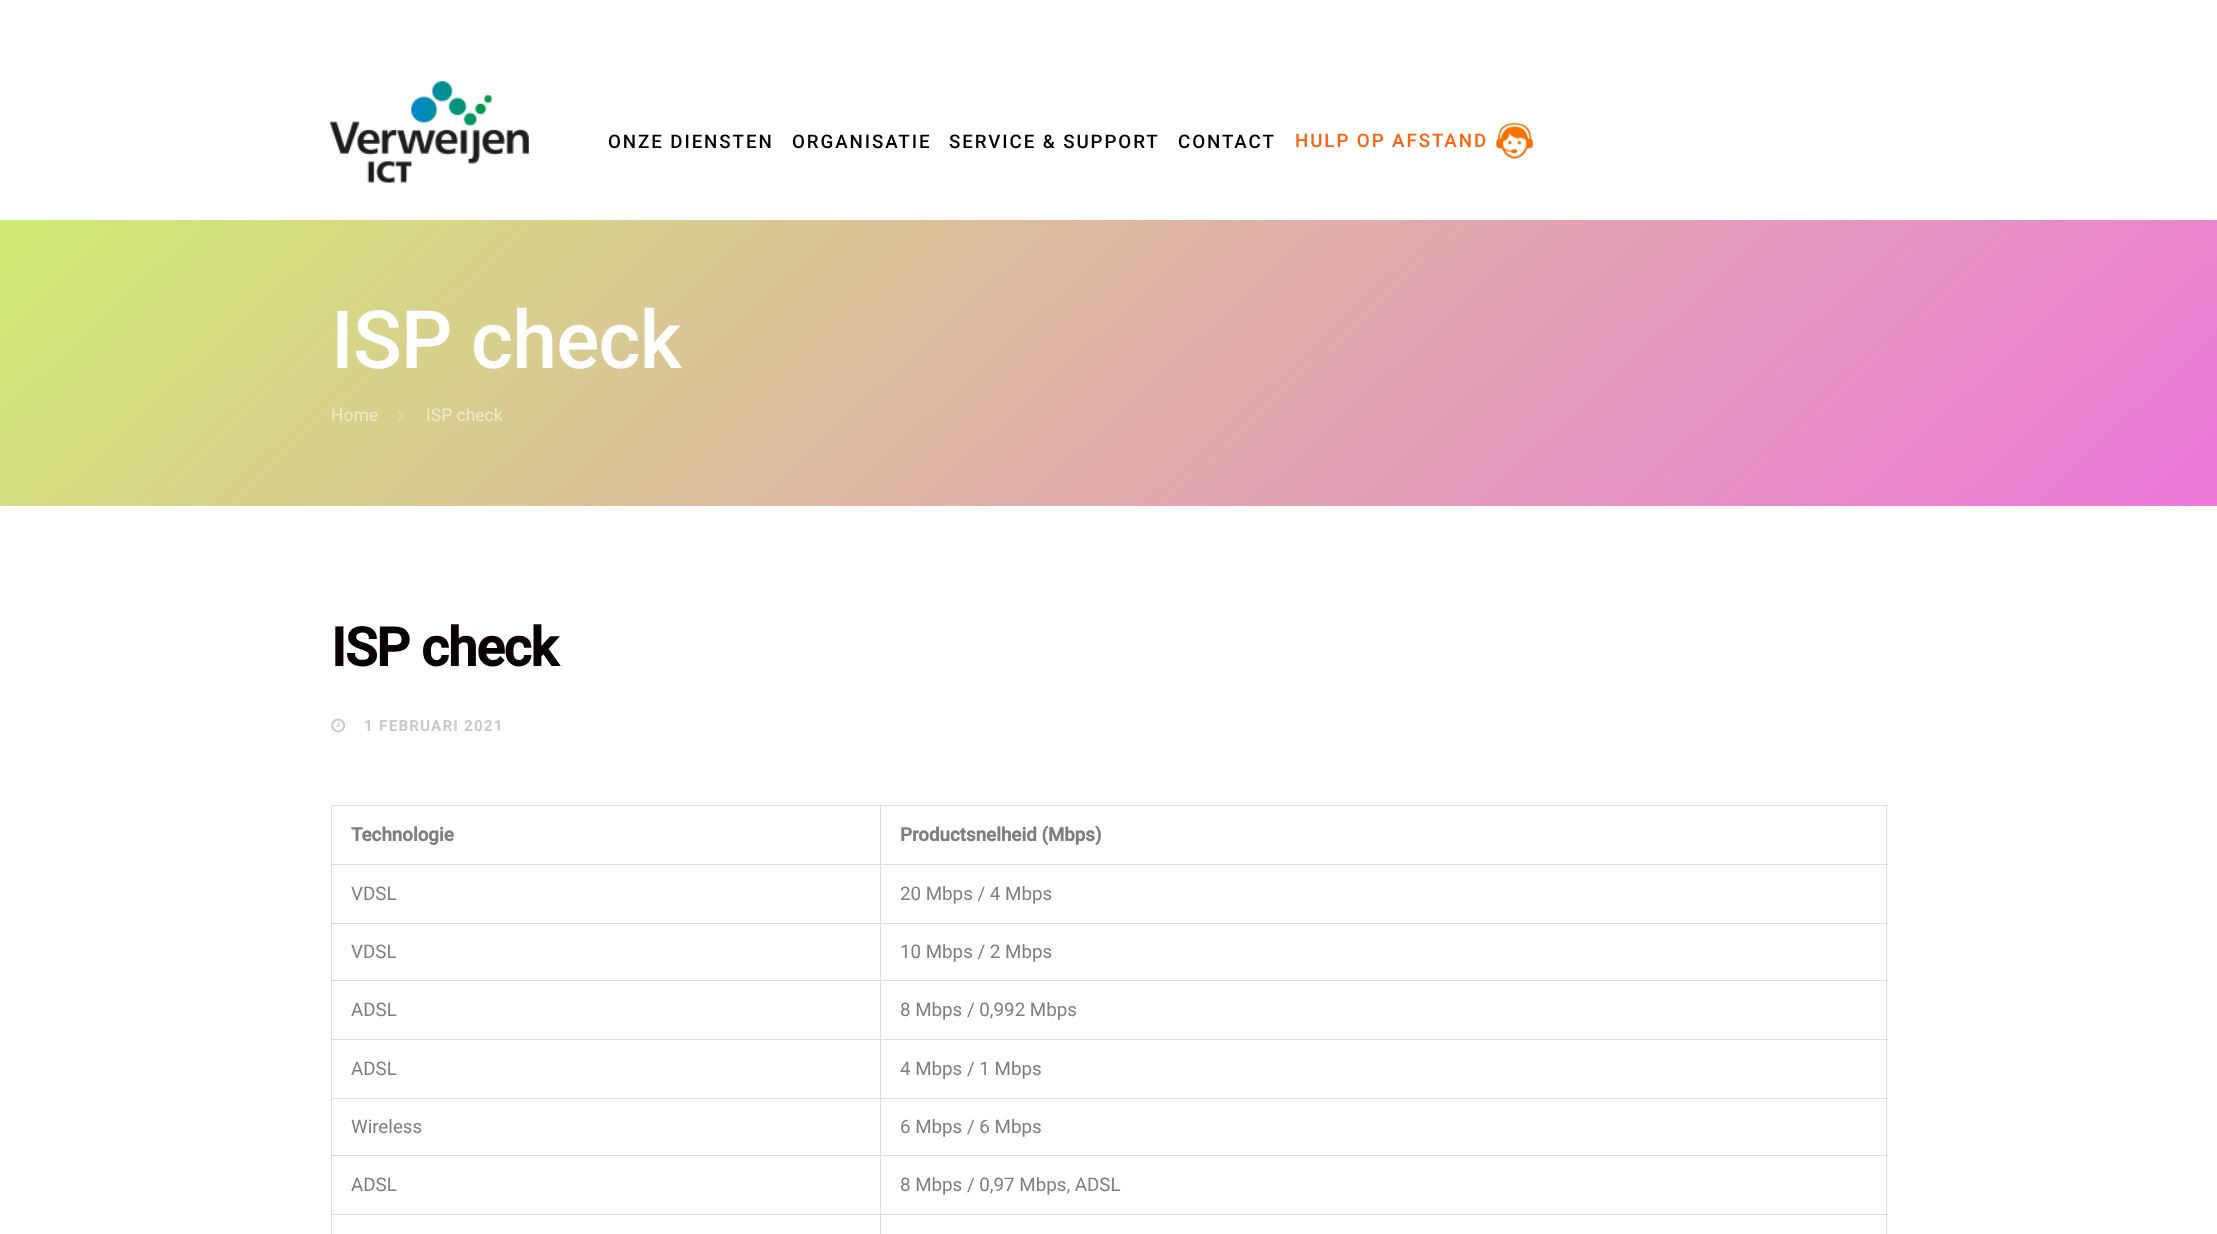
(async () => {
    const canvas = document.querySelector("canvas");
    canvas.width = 2217;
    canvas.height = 1234;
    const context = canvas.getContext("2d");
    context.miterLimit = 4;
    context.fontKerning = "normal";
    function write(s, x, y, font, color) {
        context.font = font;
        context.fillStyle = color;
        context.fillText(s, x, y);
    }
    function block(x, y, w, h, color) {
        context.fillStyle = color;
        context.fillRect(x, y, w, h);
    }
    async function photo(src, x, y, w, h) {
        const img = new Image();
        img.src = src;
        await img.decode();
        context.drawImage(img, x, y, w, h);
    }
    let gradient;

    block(0, 0, 2217, 1234, "rgb(255, 255, 255)");
    gradient = context.createLinearGradient(467, -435, 1751, 942);
    gradient.addColorStop(0, "rgb(206, 246, 107)");
    gradient.addColorStop(1, "rgb(237, 120, 218)");
    context.fillStyle = gradient;
    context.fillRect(0, 220, 2217, 286);
    await photo("media/1.png", 330, 81, 199, 102);
    context.letterSpacing = "1.9px";
    write("ONZE DIENSTEN", 608, 148, "500 18.75px Roboto", "rgb(0, 0, 0)");
    write("ORGANISATIE", 792, 148, "500 18.75px Roboto", "rgb(0, 0, 0)");
    write("SERVICE & SUPPORT", 949, 148, "500 18.75px Roboto", "rgb(0, 0, 0)");
    write("CONTACT", 1178, 148, "500 18.75px Roboto", "rgb(0, 0, 0)");
    write("HULP OP AFSTAND", 1295, 147, "500 18.75px Roboto", "rgb(255, 98, 12)");
    await photo("media/2.png", 1496, 122, 37, 37);
    context.letterSpacing = "-0.75px";
    write("ISP check", 331, 368, "500 80.5px Roboto", "rgb(255, 255, 255)");
    context.letterSpacing = "0px";
    write("Home", 331, 421, "17.5px Roboto", "rgb(237, 235, 203)");
    await photo("media/3.png", 397, 411, 7, 10);
    write("ISP check", 426, 421, "17.5px Roboto", "rgb(237, 235, 203)");
    context.letterSpacing = "-1.25px";
    write("ISP check", 331, 666, "bold 53.5px Roboto", "rgb(10, 2, 2)");
    await photo("media/4.png", 331, 718, 15, 15);
    context.letterSpacing = "1.5px";
    write("1 FEBRUARI 2021", 364, 731, "bold 14.75px Roboto", "rgb(202, 202, 202)");
    block(331, 805, 1557, 1, "rgb(222, 222, 222)");
    block(1886, 805, 1, 429, "rgb(222, 222, 222)");
    block(331, 805, 1, 429, "rgb(222, 222, 222)");
    block(331, 864, 1557, 1, "rgb(222, 222, 222)");
    context.letterSpacing = "0px";
    write("Technologie", 351, 841, "bold 18.75px Roboto", "rgb(126, 126, 126)");
    write("Productsnelheid (Mbps)", 900, 841, "bold 18.75px Roboto", "rgb(126, 126, 126)");
    block(331, 923, 1557, 1, "rgb(222, 222, 222)");
    block(331, 980, 1557, 1, "rgb(222, 222, 222)");
    block(331, 1039, 1557, 1, "rgb(222, 222, 222)");
    block(331, 1098, 1557, 1, "rgb(222, 222, 222)");
    block(331, 1155, 1557, 1, "rgb(222, 222, 222)");
    block(331, 1214, 1557, 1, "rgb(222, 222, 222)");
    block(880, 805, 1, 429, "rgb(222, 222, 222)");
    write("VDSL", 351, 900, "18.75px Roboto", "rgb(126, 126, 126)");
    write("20 Mbps / 4 Mbps", 900, 900, "18.75px Roboto", "rgb(126, 126, 126)");
    write("VDSL", 351, 958, "18.75px Roboto", "rgb(126, 126, 126)");
    write("10 Mbps / 2 Mbps", 900, 958, "18.75px Roboto", "rgb(126, 126, 126)");
    write("ADSL", 351, 1016, "18.75px Roboto", "rgb(126, 126, 126)");
    write("8 Mbps / 0,992 Mbps", 900, 1016, "18.75px Roboto", "rgb(126, 126, 126)");
    write("ADSL", 351, 1075, "18.75px Roboto", "rgb(126, 126, 126)");
    write("4 Mbps / 1 Mbps", 900, 1075, "18.75px Roboto", "rgb(126, 126, 126)");
    write("Wireless", 351, 1133, "18.75px Roboto", "rgb(126, 126, 126)");
    write("6 Mbps / 6 Mbps", 900, 1133, "18.75px Roboto", "rgb(126, 126, 126)");
    write("ADSL", 351, 1191, "18.75px Roboto", "rgb(126, 126, 126)");
    write("8 Mbps / 0,97 Mbps, ADSL", 900, 1191, "18.75px Roboto", "rgb(126, 126, 126)");
})();
